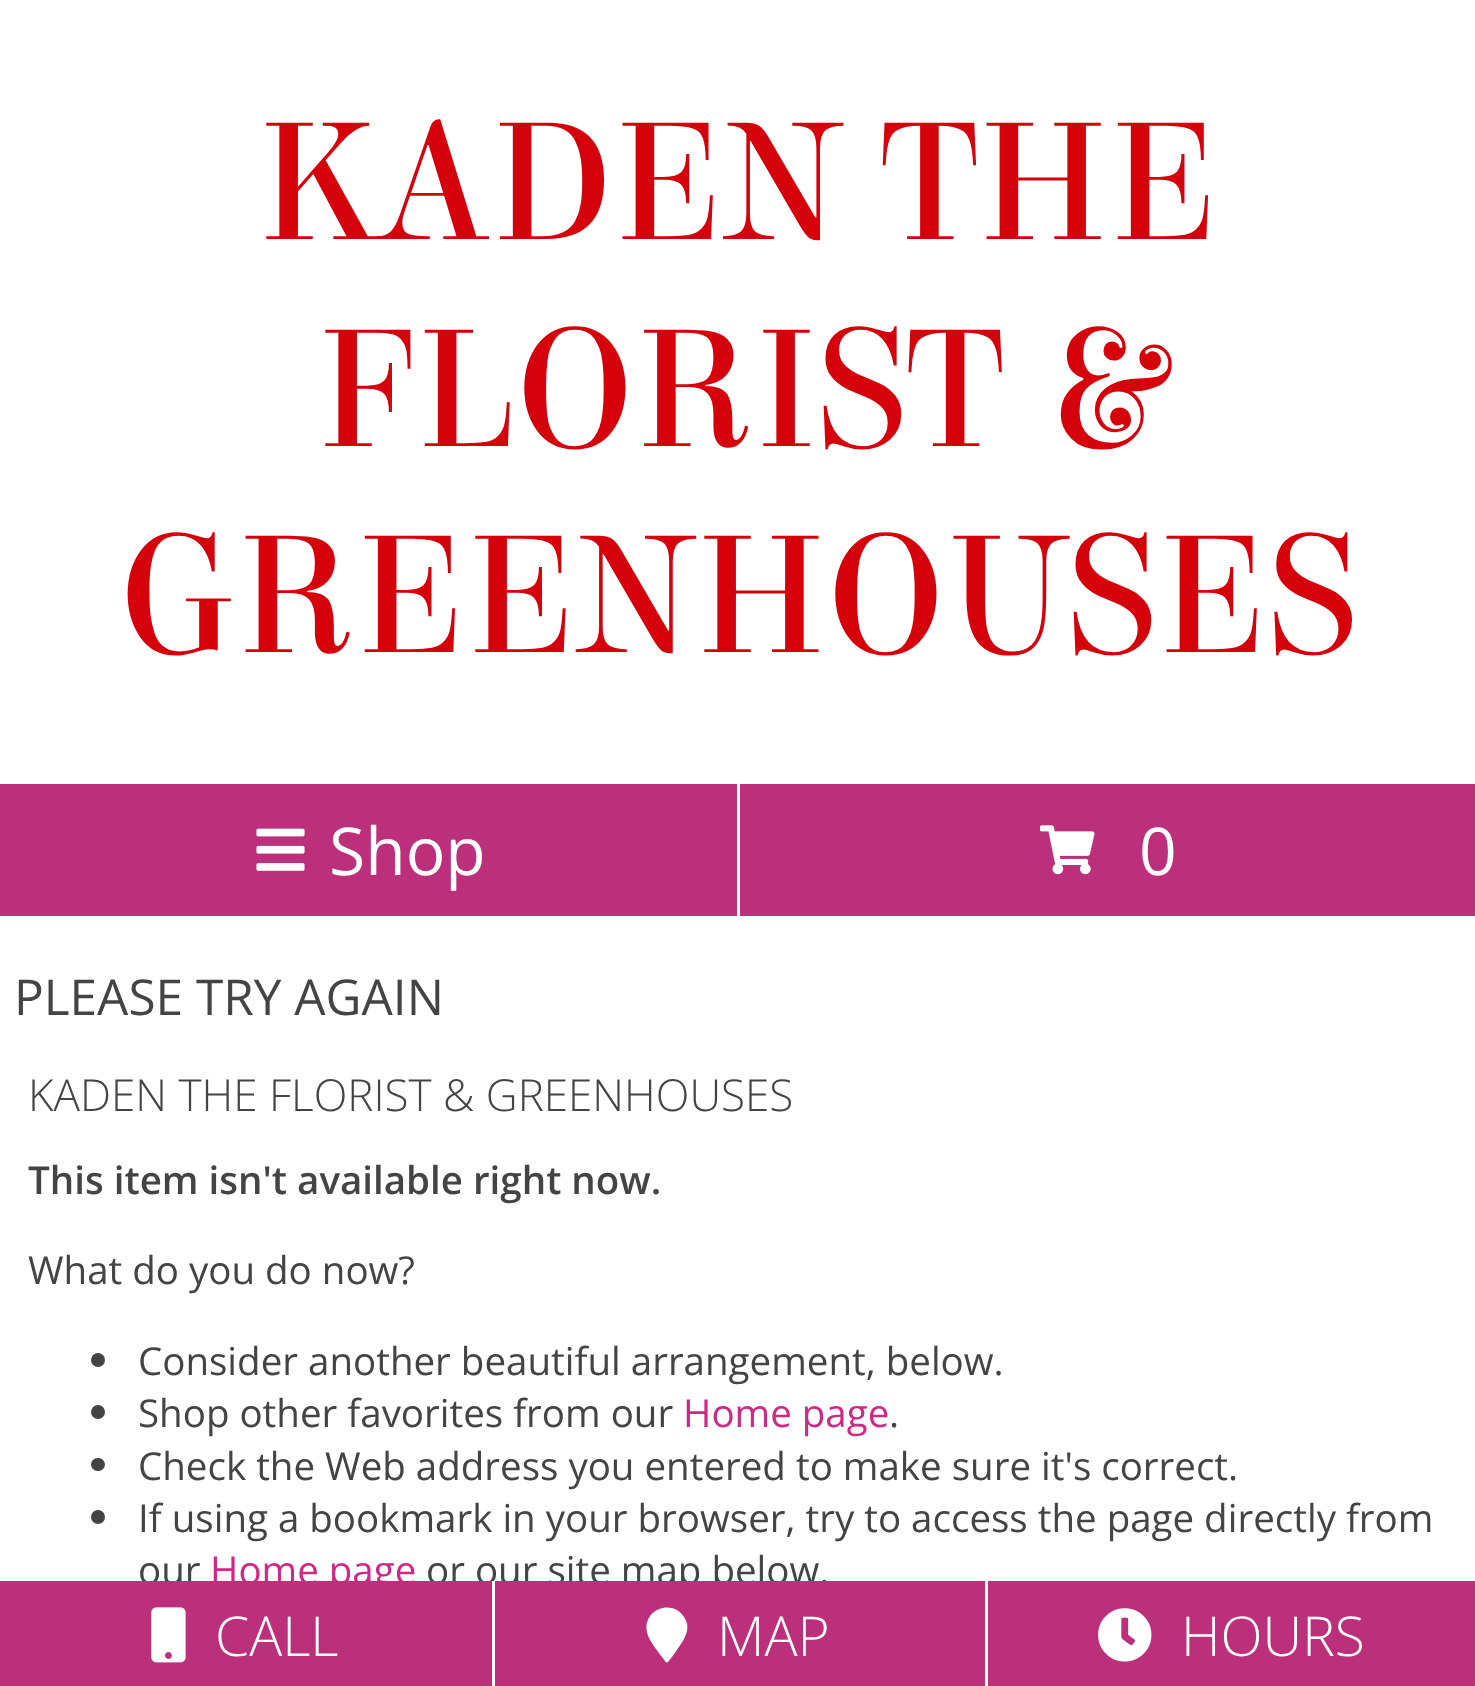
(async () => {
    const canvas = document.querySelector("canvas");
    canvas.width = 1475;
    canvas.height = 1686;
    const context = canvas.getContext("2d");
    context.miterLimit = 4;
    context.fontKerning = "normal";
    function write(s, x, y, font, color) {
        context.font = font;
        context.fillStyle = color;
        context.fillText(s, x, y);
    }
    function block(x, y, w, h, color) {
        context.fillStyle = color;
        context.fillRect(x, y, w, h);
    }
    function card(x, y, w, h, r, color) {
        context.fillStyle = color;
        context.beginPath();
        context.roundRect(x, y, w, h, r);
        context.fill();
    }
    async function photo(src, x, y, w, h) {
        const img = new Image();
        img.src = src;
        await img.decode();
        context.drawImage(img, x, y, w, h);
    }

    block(0, 0, 1475, 1686, "rgb(255, 255, 255)");
    write("KADEN THE", 257, 239, "178.75px Elsie", "rgb(213, 2, 11)");
    write("FLORIST &", 316, 446, "178.75px Elsie", "rgb(213, 2, 11)");
    write("GREENHOUSES", 118, 652, "178.75px Elsie", "rgb(213, 2, 11)");
    block(0, 784, 737, 132, "rgb(188, 47, 123)");
    await photo("media/1.png", 256, 828, 49, 43);
    write("Shop", 329, 875, "66px Open Sans", "rgb(255, 255, 255)");
    block(740, 784, 735, 132, "rgb(188, 47, 123)");
    await photo("media/2.png", 1040, 825, 55, 50);
    write("0", 1139, 875, "66px Open Sans", "rgb(255, 255, 255)");
    write("PLEASE TRY AGAIN", 14, 1015, "49.5px Open Sans", "rgb(68, 68, 68)");
    write("KADEN THE FLORIST & GREENHOUSES", 28, 1111, "300 44px Open Sans", "rgb(68, 68, 68)");
    write("This item isn't available right now.", 28, 1194, "600 38.5px Open Sans", "rgb(68, 68, 68)");
    write("What do you do now?", 28, 1284, "38.5px Open Sans", "rgb(68, 68, 68)");
    context.beginPath();
    context.arc(98, 1360, 7, 0, Math.PI * 2);
    context.fill();
    write("Consider another beautiful arrangement, below.", 138, 1375, "38.5px Open Sans", "rgb(68, 68, 68)");
    context.beginPath();
    context.arc(98, 1412, 7, 0, Math.PI * 2);
    context.fill();
    write("Shop other favorites from our", 138, 1427, "38.5px Open Sans", "rgb(68, 68, 68)");
    write("Home page", 683, 1427, "38.5px Open Sans", "rgb(205, 41, 133)");
    write(".", 889, 1427, "38.5px Open Sans", "rgb(68, 68, 68)");
    card(91, 1458, 14, 13, 6.5, "rgb(68, 68, 68)");
    write("Check the Web address you entered to make sure it's correct.", 138, 1480, "38.5px Open Sans", "rgb(68, 68, 68)");
    context.beginPath();
    context.arc(98, 1517, 7, 0, Math.PI * 2);
    context.fill();
    write("If using a bookmark in your browser, try to access the page directly from", 138, 1532, "38.5px Open Sans", "rgb(68, 68, 68)");
    write("our", 138, 1584, "38.5px Open Sans", "rgb(68, 68, 68)");
    write("Home page", 210, 1584, "38.5px Open Sans", "rgb(205, 41, 133)");
    write("or our site map below.", 426, 1584, "38.5px Open Sans", "rgb(68, 68, 68)");
    block(0, 1581, 492, 105, "rgb(188, 47, 123)");
    await photo("media/3.png", 151, 1607, 35, 56);
    write("CALL", 215, 1656, "300 55px Open Sans", "rgb(255, 255, 255)");
    block(495, 1581, 490, 105, "rgb(188, 47, 123)");
    block(492, 1581, 2, 2, "rgb(255, 255, 255)");
    context.beginPath();
    context.moveTo(665, 1661);
    context.bezierCurveTo(660, 1654, 648, 1640, 647, 1632);
    context.bezierCurveTo(642, 1610, 672, 1598, 684, 1617);
    context.bezierCurveTo(693, 1630, 682, 1642, 675, 1653);
    context.lineTo(668, 1662);
    context.bezierCurveTo(667, 1663, 665, 1662, 665, 1661);
    context.closePath();
    context.fill();
    write("MAP", 717, 1656, "300 55px Open Sans", "rgb(255, 255, 255)");
    block(988, 1581, 487, 105, "rgb(188, 47, 123)");
    await photo("media/4.png", 1098, 1608, 54, 54);
    write("HOURS", 1181, 1656, "300 55px Open Sans", "rgb(255, 255, 255)");
})();
